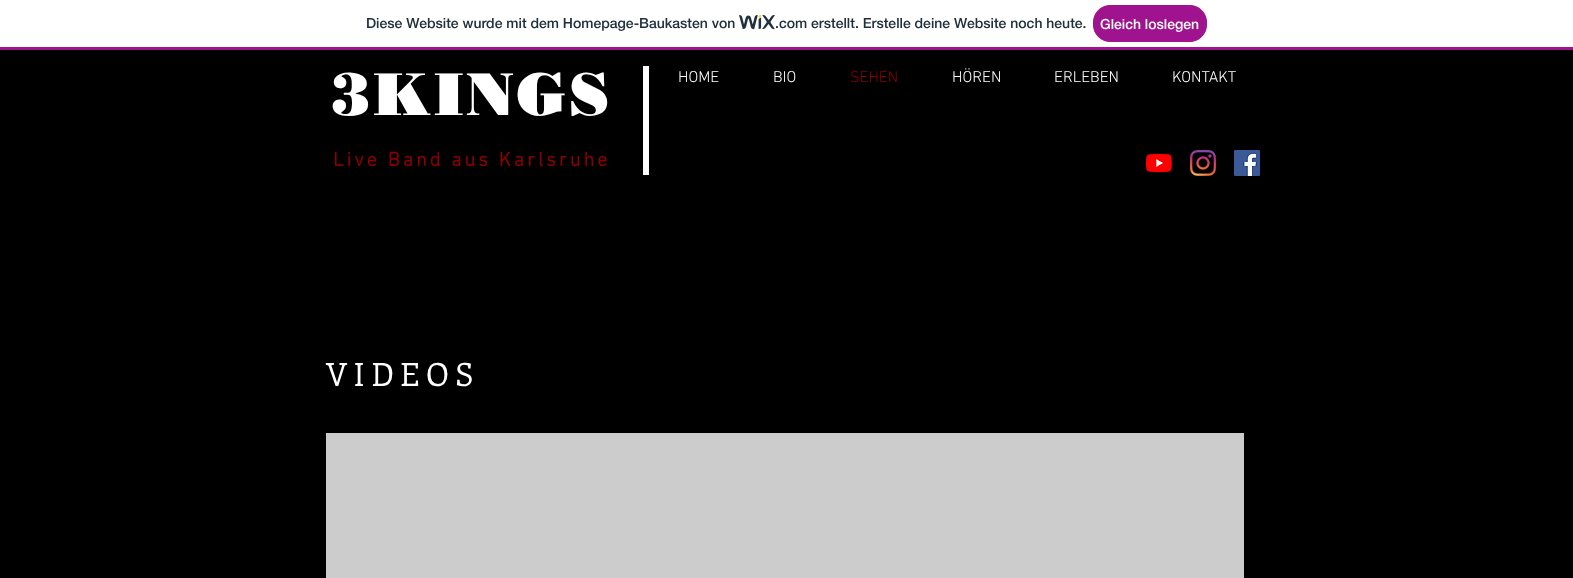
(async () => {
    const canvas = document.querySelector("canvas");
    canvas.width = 1573;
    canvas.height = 578;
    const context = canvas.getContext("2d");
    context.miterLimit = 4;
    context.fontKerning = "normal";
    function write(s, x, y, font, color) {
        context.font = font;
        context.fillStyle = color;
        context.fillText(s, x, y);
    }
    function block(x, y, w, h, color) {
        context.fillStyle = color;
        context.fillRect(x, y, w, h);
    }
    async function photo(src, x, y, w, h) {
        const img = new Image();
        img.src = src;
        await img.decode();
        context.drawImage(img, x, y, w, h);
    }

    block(0, 0, 1573, 578, "rgb(255, 255, 255)");
    block(0, 47, 1573, 3, "rgb(160, 19, 142)");
    write("Diese Website wurde mit dem Homepage-Baukasten von", 366, 28, "500 14px 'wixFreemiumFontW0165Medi'", "rgb(32, 48, 60)");
    await photo("media/1.png", 739, 15, 36, 15);
    write(".com erstellt. Erstelle deine Website noch heute.", 775, 28, "500 14px 'wixFreemiumFontW0165Medi'", "rgb(32, 48, 60)");
    context.fillStyle = "rgb(160, 19, 142)";
    context.beginPath();
    context.roundRect(1093.5, 5.5, 113, 36, 16.5);
    context.fill();
    context.strokeStyle = "rgb(160, 19, 142)";
    context.stroke();
    write("Gleich loslegen", 1100, 29, "500 14px 'wixFreemiumFontW0165Medi'", "rgb(255, 255, 255)");
    block(0, 50, 1573, 528, "rgb(0, 0, 0)");
    context.letterSpacing = "3px";
    write("3KINGS", 331, 115, "900 60px 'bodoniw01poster'", "rgb(255, 255, 255)");
    block(643, 66, 6, 109, "rgb(255, 255, 255)");
    context.letterSpacing = "0px";
    write("HOME", 678, 82, "300 16px 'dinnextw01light'", "rgb(255, 255, 255)");
    write("BIO", 773, 82, "300 16px 'dinnextw01light'", "rgb(255, 255, 255)");
    write("SEHEN", 850, 82, "300 16px 'dinnextw01light'", "rgb(139, 0, 0)");
    write("HÖREN", 952, 82, "300 16px 'dinnextw01light'", "rgb(255, 255, 255)");
    write("ERLEBEN", 1054, 82, "300 16px 'dinnextw01light'", "rgb(255, 255, 255)");
    write("KONTAKT", 1172, 82, "300 16px 'dinnextw01light'", "rgb(255, 255, 255)");
    context.letterSpacing = "3px";
    write("Live Band aus Karlsruhe", 333, 166, "bold 20px 'dinnextw01light'", "rgb(139, 0, 0)");
    await photo("media/2.png", 1146, 153, 26, 20);
    await photo("media/3.png", 1190, 150, 26, 26);
    await photo("media/4.png", 1234, 150, 26, 26);
    context.letterSpacing = "6.5px";
    write("VIDEOS", 326, 386, "32px Enriqueta", "rgb(255, 255, 255)");
    block(326, 433, 918, 145, "rgb(204, 204, 204)");
})();
